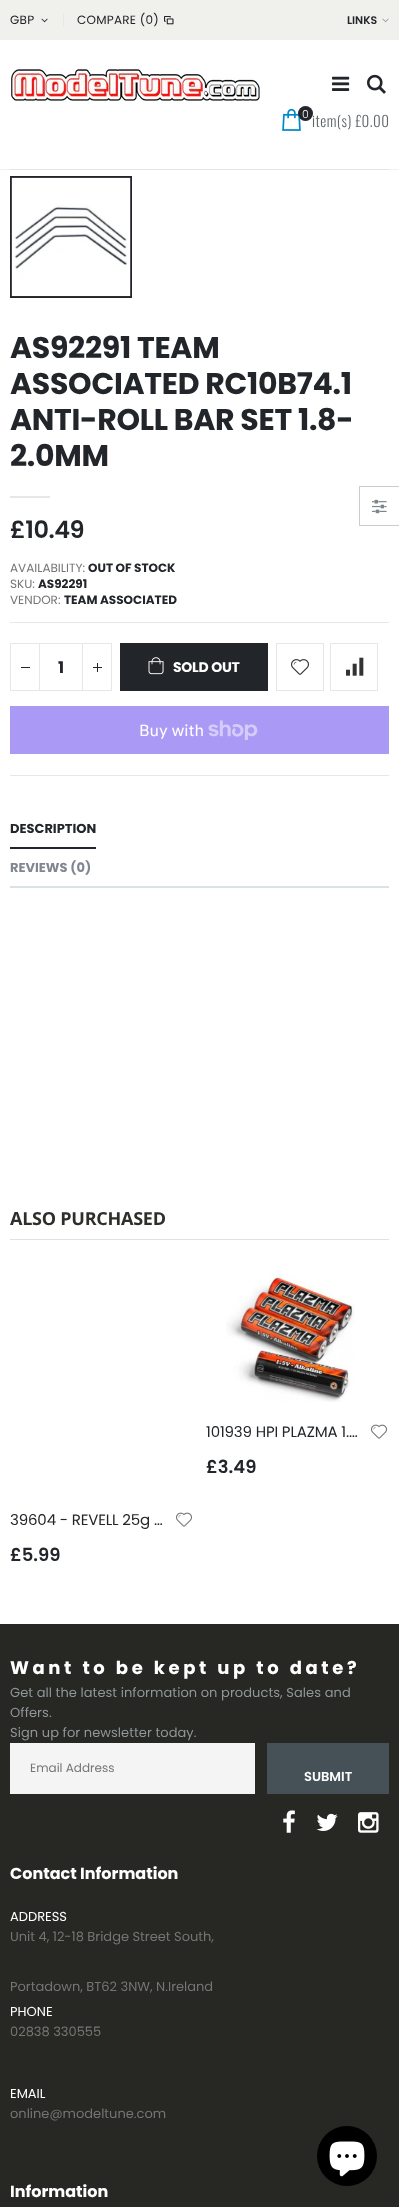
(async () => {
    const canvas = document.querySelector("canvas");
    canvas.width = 399;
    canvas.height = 2207;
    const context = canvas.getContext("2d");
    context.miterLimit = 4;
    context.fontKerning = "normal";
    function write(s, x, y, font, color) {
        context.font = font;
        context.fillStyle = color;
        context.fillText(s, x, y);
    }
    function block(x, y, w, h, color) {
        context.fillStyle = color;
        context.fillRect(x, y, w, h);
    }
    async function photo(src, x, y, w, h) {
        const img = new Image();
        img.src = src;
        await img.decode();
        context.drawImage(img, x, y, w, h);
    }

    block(0, 0, 399, 2207, "rgb(255, 255, 255)");
    context.strokeStyle = "rgb(244, 244, 244)";
    context.strokeRect(10.5, -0.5, 378, 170);
    block(0, 169, 399, 1, "rgba(0, 0, 0, 0.06)");
    block(10, 40, 379, 129, "rgb(255, 255, 255)");
    block(0, 0, 399, 40, "rgb(240, 240, 237)");
    context.letterSpacing = "0.25px";
    write("GBP", 10, 24, "12px Poppins", "rgb(34, 37, 41)");
    await photo("media/1.png", 41, 18, 7, 5);
    block(63, 13, 1, 14, "rgb(231, 231, 231)");
    write("COMPARE (0)", 77, 24, "12px Poppins", "rgb(34, 37, 41)");
    await photo("media/2.png", 164, 16, 10, 9);
    context.letterSpacing = "0px";
    write("LINKS", 347, 24, "600 11px Poppins", "rgb(34, 37, 41)");
    await photo("media/3.png", 382, 18, 7, 5);
    await photo("media/4.png", 11, 69, 249, 32);
    await photo("media/5.png", 332, 76, 18, 15);
    await photo("media/6.png", 367, 74, 19, 20);
    await photo("media/7.png", 282, 108, 19, 23);
    context.letterSpacing = "0.5px";
    write("item(s) £0.00", 312, 127, "300 15px Oswald", "rgb(96, 102, 105)");
    context.fillStyle = "rgb(34, 37, 41)";
    context.beginPath();
    context.arc(305.5, 113.5, 7.5, 0, Math.PI * 2);
    context.fill();
    context.letterSpacing = "0px";
    write("0", 302, 118, "300 11px Poppins", "rgb(255, 255, 255)");
    context.strokeStyle = "rgb(34, 37, 41)";
    context.lineWidth = 2;
    context.strokeRect(11, 177, 120, 120);
    await photo("media/8.png", 11, 177, 120, 120);
    context.letterSpacing = "-0.3px";
    write("AS92291 TEAM", 10, 358, "bold 30px Poppins", "rgb(34, 37, 41)");
    write("ASSOCIATED RC10B74.1", 10, 394, "bold 30px Poppins", "rgb(34, 37, 41)");
    write("ANTI-ROLL BAR SET 1.8-", 10, 430, "bold 30px Poppins", "rgb(34, 37, 41)");
    write("2.0MM", 10, 466, "bold 30px Poppins", "rgb(34, 37, 41)");
    block(10, 496, 40, 2, "rgb(231, 231, 231)");
    context.letterSpacing = "-0.5px";
    write("£10.49", 10, 538, "600 24px Poppins", "rgb(34, 37, 41)");
    context.letterSpacing = "0px";
    write("AVAILABILITY:", 10, 572, "12px Poppins", "rgb(117, 117, 117)");
    write("OUT OF STOCK", 88, 572, "bold 12px Poppins", "rgb(34, 37, 41)");
    write("SKU:", 10, 588, "12px Poppins", "rgb(117, 117, 117)");
    write("AS92291", 38, 588, "bold 12px Poppins", "rgb(34, 37, 41)");
    write("VENDOR:", 10, 604, "12px Poppins", "rgb(117, 117, 117)");
    write("TEAM ASSOCIATED", 64, 604, "bold 12px Poppins", "rgb(34, 37, 41)");
    block(10, 622, 379, 1, "rgb(231, 231, 231)");
    block(10, 775, 379, 1, "rgb(231, 231, 231)");
    context.strokeStyle = "rgb(231, 231, 231)";
    context.lineWidth = 1;
    context.strokeRect(39.5, 643.5, 43, 47);
    context.strokeRect(10.5, 643.5, 29, 47);
    block(21, 667, 9, 1, "rgb(34, 37, 41)");
    context.strokeRect(82.5, 643.5, 29, 47);
    block(93, 667, 9, 1, "rgb(34, 37, 41)");
    block(97, 663, 1, 9, "rgb(34, 37, 41)");
    write("1", 58, 673, "bold 16px Poppins", "rgb(34, 37, 41)");
    block(120, 643, 148, 48, "rgb(34, 37, 41)");
    await photo("media/9.png", 148, 657, 16, 18);
    context.letterSpacing = "-0.25px";
    write("SOLD OUT", 173, 672, "bold 14px Poppins", "rgb(255, 255, 255)");
    context.strokeRect(276.5, 643.5, 47, 47);
    await photo("media/10.png", 291, 659, 18, 16);
    context.strokeRect(330.5, 643.5, 47, 47);
    await photo("media/11.png", 346, 657, 18, 19);
    block(10, 706, 379, 48, "rgb(170, 153, 245)");
    context.letterSpacing = "0px";
    write("Buy with", 139, 736, "16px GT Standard", "rgb(255, 255, 255)");
    await photo("media/12.png", 208, 720, 50, 20);
    block(10, 886, 379, 2, "rgb(218, 226, 230)");
    block(10, 847, 86, 2, "rgb(34, 37, 41)");
    write("DESCRIPTION", 10, 833, "bold 13px Poppins", "rgb(34, 37, 41)");
    write("REVIEWS (0)", 10, 872, "bold 13px Poppins", "rgb(129, 134, 146)");
    block(359, 486, 40, 1, "rgb(204, 204, 204)");
    block(359, 525, 40, 1, "rgb(204, 204, 204)");
    block(359, 486, 1, 40, "rgb(204, 204, 204)");
    await photo("media/13.png", 372, 499, 15, 15);
    block(10, 1239, 379, 1, "rgb(225, 225, 225)");
    context.letterSpacing = "-0.25px";
    write("ALSO PURCHASED", 10, 1225, "bold 18px Open Sans", "rgb(48, 46, 42)");
    await photo("media/14.png", 226, 1274, 129, 128);
    context.letterSpacing = "-0.15px";
    write("101939 HPI PLAZMA 1.…", 206, 1437, "15px Poppins", "rgb(34, 37, 41)");
    await photo("media/15.png", 371, 1424, 16, 15);
    context.letterSpacing = "0px";
    write("£3.49", 206, 1473, "600 18px Poppins", "rgb(34, 37, 41)");
    context.letterSpacing = "-0.15px";
    write("39604 - REVELL 25g …", 10, 1525, "15px Poppins", "rgb(34, 37, 41)");
    await photo("media/15.png", 176, 1512, 16, 15);
    context.letterSpacing = "0px";
    write("£5.99", 10, 1561, "600 18px Poppins", "rgb(34, 37, 41)");
    block(0, 1624, 399, 583, "rgb(39, 39, 35)");
    context.letterSpacing = "3.6px";
    write("Want to be kept up to date?", 10, 1674, "bold 18px Poppins", "rgb(255, 255, 255)");
    context.letterSpacing = "0.07px";
    write("Get all the latest information on products, Sales and", 10, 1697, "13px Poppins", "rgb(144, 150, 154)");
    write("Offers.", 10, 1717, "13px Poppins", "rgb(144, 150, 154)");
    write("Sign up for newsletter today.", 10, 1737, "13px Poppins", "rgb(144, 150, 154)");
    block(10, 1743, 245, 51, "rgb(244, 244, 244)");
    context.letterSpacing = "0px";
    write("Email Address", 30, 1772, "12px Poppins", "rgb(117, 117, 117)");
    block(267, 1743, 122, 51, "rgb(70, 81, 87)");
    write("SUBMIT", 304, 1781, "600 13px Poppins", "rgb(255, 255, 255)");
    await photo("media/16.png", 283, 1810, 12, 23);
    await photo("media/17.png", 316, 1813, 22, 18);
    await photo("media/18.png", 358, 1812, 21, 21);
    write("Contact Information", 10, 1879, "bold 16px Poppins", "rgb(255, 255, 255)");
    write("ADDRESS", 10, 1921, "13px Poppins", "rgb(255, 255, 255)");
    write("Unit 4, 12-18 Bridge Street South,", 10, 1941, "13px Poppins", "rgb(117, 117, 117)");
    write("Portadown, BT62 3NW, N.Ireland", 10, 1991, "13px Poppins", "rgb(117, 117, 117)");
    write("PHONE", 10, 2016, "13px Poppins", "rgb(255, 255, 255)");
    write("02838 330555", 10, 2036, "13px Poppins", "rgb(117, 117, 117)");
    write("EMAIL", 10, 2098, "13px Poppins", "rgb(255, 255, 255)");
    write("online@modeltune.com", 10, 2118, "13px Poppins", "rgb(117, 117, 117)");
    write("Information", 10, 2197, "bold 16px Poppins", "rgb(255, 255, 255)");
    context.fillStyle = "rgb(0, 0, 0)";
    context.beginPath();
    context.arc(347, 2156, 30, 0, Math.PI * 2);
    context.fill();
    await photo("media/19.png", 329, 2141, 36, 36);
})();
